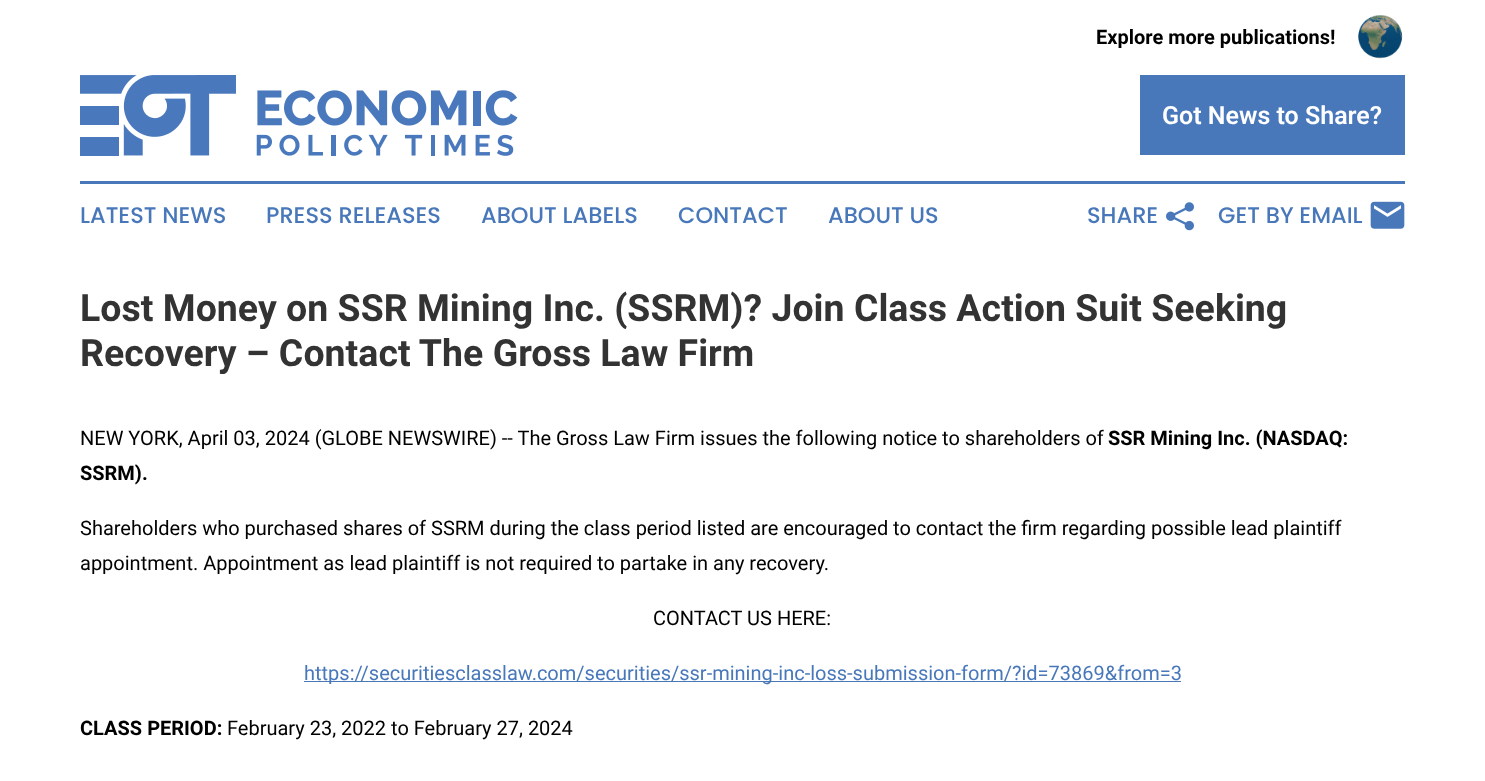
(async () => {
    const canvas = document.querySelector("canvas");
    canvas.width = 1485;
    canvas.height = 781;
    const context = canvas.getContext("2d");
    context.miterLimit = 4;
    context.fontKerning = "normal";
    function write(s, x, y, font, color) {
        context.font = font;
        context.fillStyle = color;
        context.fillText(s, x, y);
    }
    function block(x, y, w, h, color) {
        context.fillStyle = color;
        context.fillRect(x, y, w, h);
    }
    async function photo(src, x, y, w, h) {
        const img = new Image();
        img.src = src;
        await img.decode();
        context.drawImage(img, x, y, w, h);
    }

    block(0, 0, 1485, 781, "rgb(255, 255, 255)");
    write("Explore more publications!", 1096, 44, "bold 20px Roboto", "rgb(0, 0, 0)");
    await photo("media/1.png", 1358, 15, 45, 44);
    await photo("media/2.png", 80, 75, 438, 81);
    block(1140, 75, 265, 80, "rgb(72, 120, 186)");
    write("Got News to Share?", 1162, 124, "600 25px Roboto", "rgb(255, 255, 255)");
    block(80, 181, 1325, 3, "rgb(72, 120, 186)");
    write("LATEST NEWS", 80, 223, "500 22.5px Poppins", "rgb(72, 120, 186)");
    write("PRESS RELEASES", 266, 223, "500 22.5px Poppins", "rgb(72, 120, 186)");
    write("ABOUT LABELS", 481, 223, "500 22.5px Poppins", "rgb(72, 120, 186)");
    write("CONTACT", 678, 223, "500 22.5px Poppins", "rgb(72, 120, 186)");
    write("ABOUT US", 828, 223, "500 22.5px Poppins", "rgb(72, 120, 186)");
    write("SHARE", 1087, 223, "500 22.5px Poppins", "rgb(72, 120, 186)");
    await photo("media/3.png", 1166, 202, 28, 29);
    write("GET BY EMAIL", 1218, 223, "500 22.5px Poppins", "rgb(72, 120, 186)");
    await photo("media/4.png", 1370, 201, 35, 28);
    write("Lost Money on SSR Mining Inc. (SSRM)? Join Class Action Suit Seeking", 80, 321, "bold 37.5px Roboto", "rgb(51, 51, 51)");
    write("Recovery – Contact The Gross Law Firm", 80, 366, "bold 37.5px Roboto", "rgb(51, 51, 51)");
    write("NEW YORK, April 03, 2024 (GLOBE NEWSWIRE) -- The Gross Law Firm issues the following notice to shareholders of", 80, 445, "20px Roboto", "rgb(0, 0, 0)");
    write("SSR Mining Inc. (NASDAQ:", 1108, 445, "bold 20px Roboto", "rgb(0, 0, 0)");
    write("SSRM).", 80, 480, "bold 20px Roboto", "rgb(0, 0, 0)");
    write("Shareholders who purchased shares of SSRM during the class period listed are encouraged to contact the firm regarding possible lead plaintiff", 80, 535, "20px Roboto", "rgb(0, 0, 0)");
    write("appointment. Appointment as lead plaintiff is not required to partake in any recovery.", 80, 570, "20px Roboto", "rgb(0, 0, 0)");
    write("CONTACT US HERE:", 653, 625, "20px Roboto", "rgb(0, 0, 0)");
    block(304, 681, 877, 1, "rgb(72, 120, 186)");
    write("https://securitiesclasslaw.com/securities/ssr-mining-inc-loss-submission-form/?id=73869&from=3", 304, 680, "20px Roboto", "rgb(72, 120, 186)");
    write("CLASS PERIOD:", 80, 735, "bold 20px Roboto", "rgb(0, 0, 0)");
    write("February 23, 2022 to February 27, 2024", 227, 735, "20px Roboto", "rgb(0, 0, 0)");
})();
